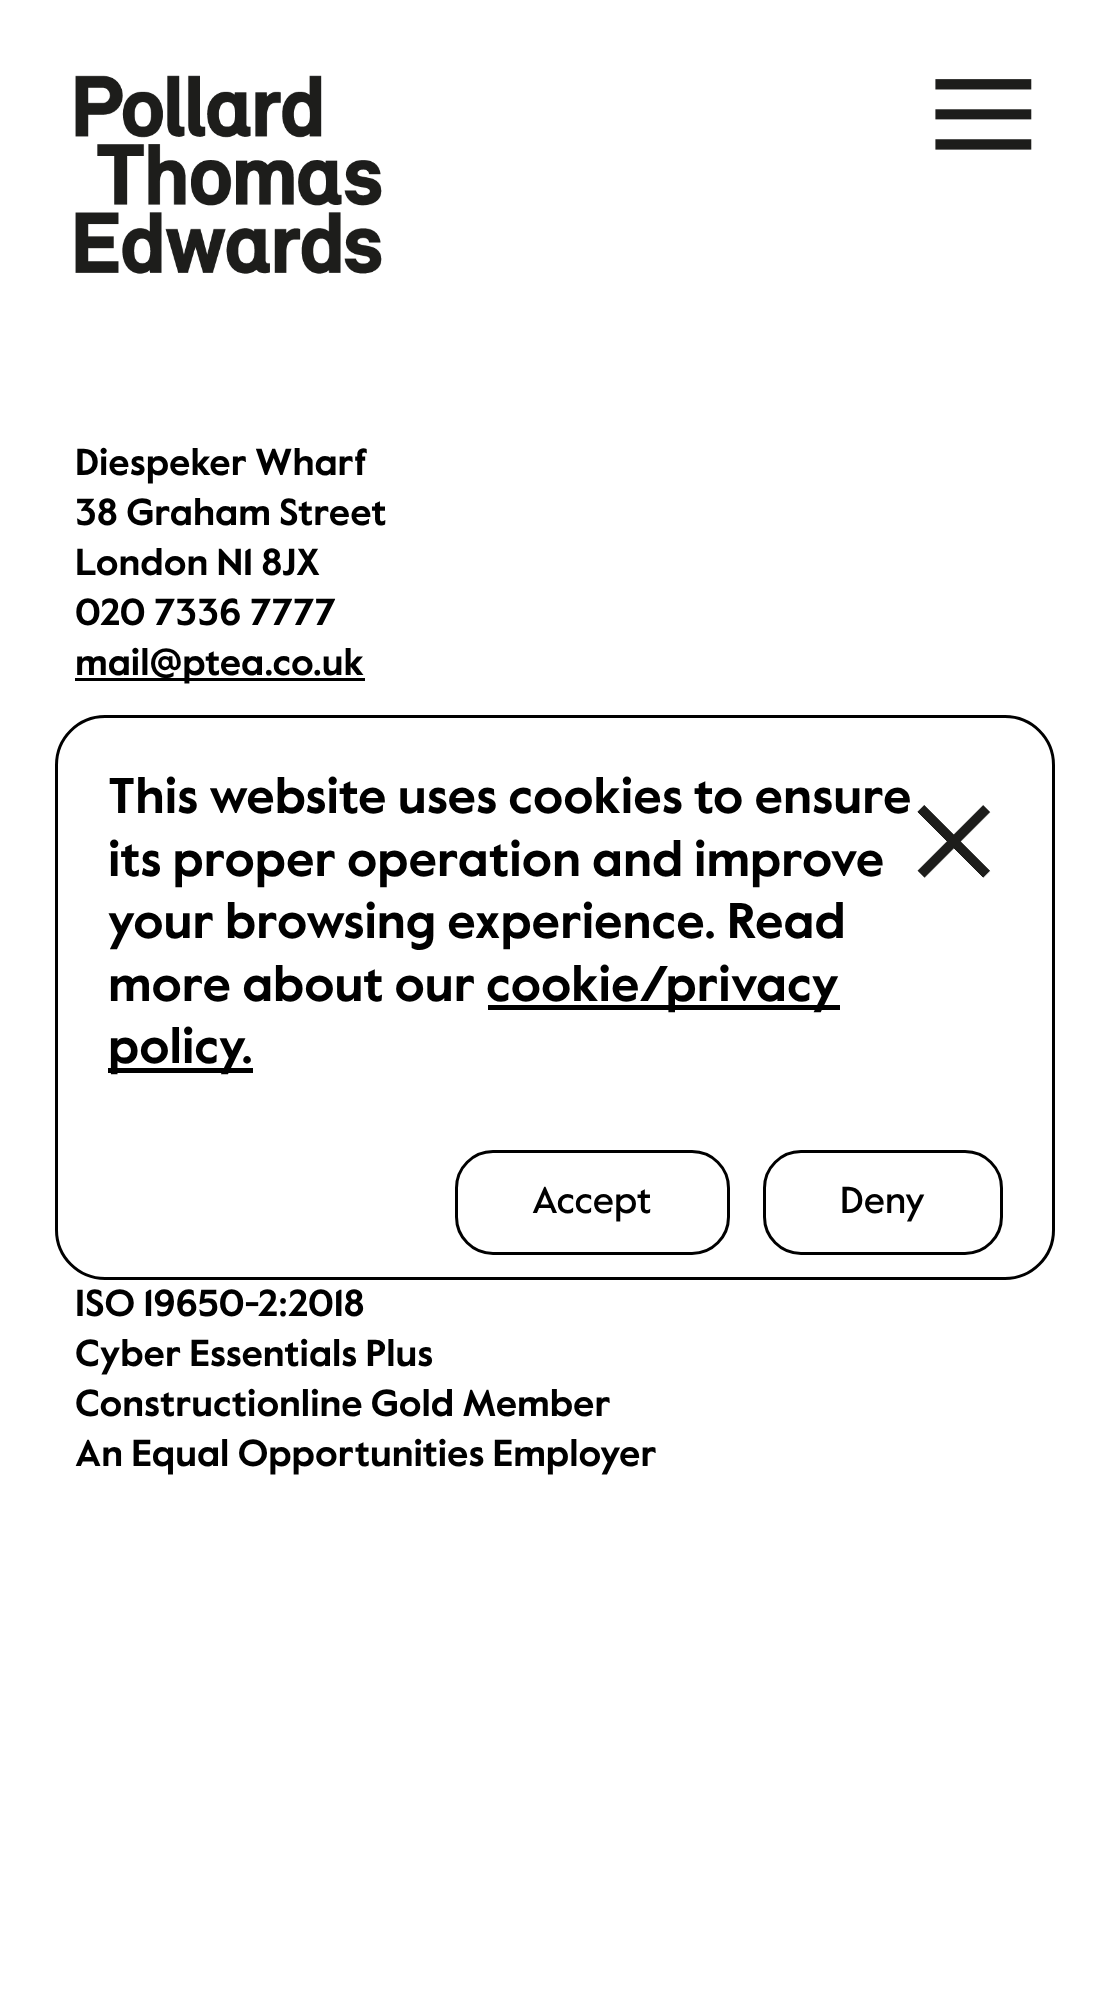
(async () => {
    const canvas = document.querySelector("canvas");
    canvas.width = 1110;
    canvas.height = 1991;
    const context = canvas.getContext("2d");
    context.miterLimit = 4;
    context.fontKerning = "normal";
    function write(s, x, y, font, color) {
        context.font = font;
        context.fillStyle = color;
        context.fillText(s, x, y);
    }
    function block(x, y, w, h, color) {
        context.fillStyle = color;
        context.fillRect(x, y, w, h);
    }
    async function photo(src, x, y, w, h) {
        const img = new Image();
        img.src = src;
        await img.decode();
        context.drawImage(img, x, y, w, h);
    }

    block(0, 0, 1110, 1991, "rgb(255, 255, 255)");
    await photo("media/1.png", 75, 75, 307, 199);
    await photo("media/2.png", 935, 79, 97, 71);
    write("Diespeker Wharf", 75, 475, "bold 37.5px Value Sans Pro", "rgb(0, 0, 0)");
    write("38 Graham Street", 75, 525, "bold 37.5px Value Sans Pro", "rgb(0, 0, 0)");
    write("London N1 8JX", 75, 575, "bold 37.5px Value Sans Pro", "rgb(0, 0, 0)");
    write("020 7336 7777", 75, 625, "bold 37.5px Value Sans Pro", "rgb(0, 0, 0)");
    block(75, 678, 290, 3, "rgb(0, 0, 0)");
    write("mail@ptea.co.uk", 75, 675, "bold 37.5px Value Sans Pro", "rgb(0, 0, 0)");
    write("ISO 19650-2:2018", 75, 1316, "bold 37.5px Value Sans Pro", "rgb(0, 0, 0)");
    write("Cyber Essentials Plus", 75, 1366, "bold 37.5px Value Sans Pro", "rgb(0, 0, 0)");
    write("Constructionline Gold Member", 75, 1416, "bold 37.5px Value Sans Pro", "rgb(0, 0, 0)");
    write("An Equal Opportunities Employer", 75, 1466, "bold 37.5px Value Sans Pro", "rgb(0, 0, 0)");
    context.beginPath();
    context.roundRect(56.5, 716.5, 997, 562, 48.5);
    context.strokeStyle = "rgb(0, 0, 0)";
    context.lineWidth = 3;
    context.stroke();
    write("This website uses cookies to ensure", 108, 813, "bold 50px Value Sans Pro", "rgb(0, 0, 0)");
    write("its proper operation and improve", 108, 876, "bold 50px Value Sans Pro", "rgb(0, 0, 0)");
    write("your browsing experience. Read", 108, 938, "bold 50px Value Sans Pro", "rgb(0, 0, 0)");
    write("more about our", 108, 1001, "bold 50px Value Sans Pro", "rgb(0, 0, 0)");
    block(488, 1005, 352, 5, "rgb(0, 0, 0)");
    write("cookie/privacy", 486, 1001, "bold 50px Value Sans Pro", "rgb(0, 0, 0)");
    block(108, 1068, 145, 5, "rgb(0, 0, 0)");
    write("policy.", 108, 1063, "bold 50px Value Sans Pro", "rgb(0, 0, 0)");
    await photo("media/3.png", 917, 805, 74, 73);
    context.beginPath();
    context.roundRect(456.5, 1151.5, 272, 102, 36.5);
    context.stroke();
    write("Accept", 532, 1213, "500 37.5px Value Sans Pro", "rgb(0, 0, 0)");
    context.beginPath();
    context.roundRect(764.5, 1151.5, 237, 102, 36.5);
    context.stroke();
    write("Deny", 840, 1213, "500 37.5px Value Sans Pro", "rgb(0, 0, 0)");
})();
